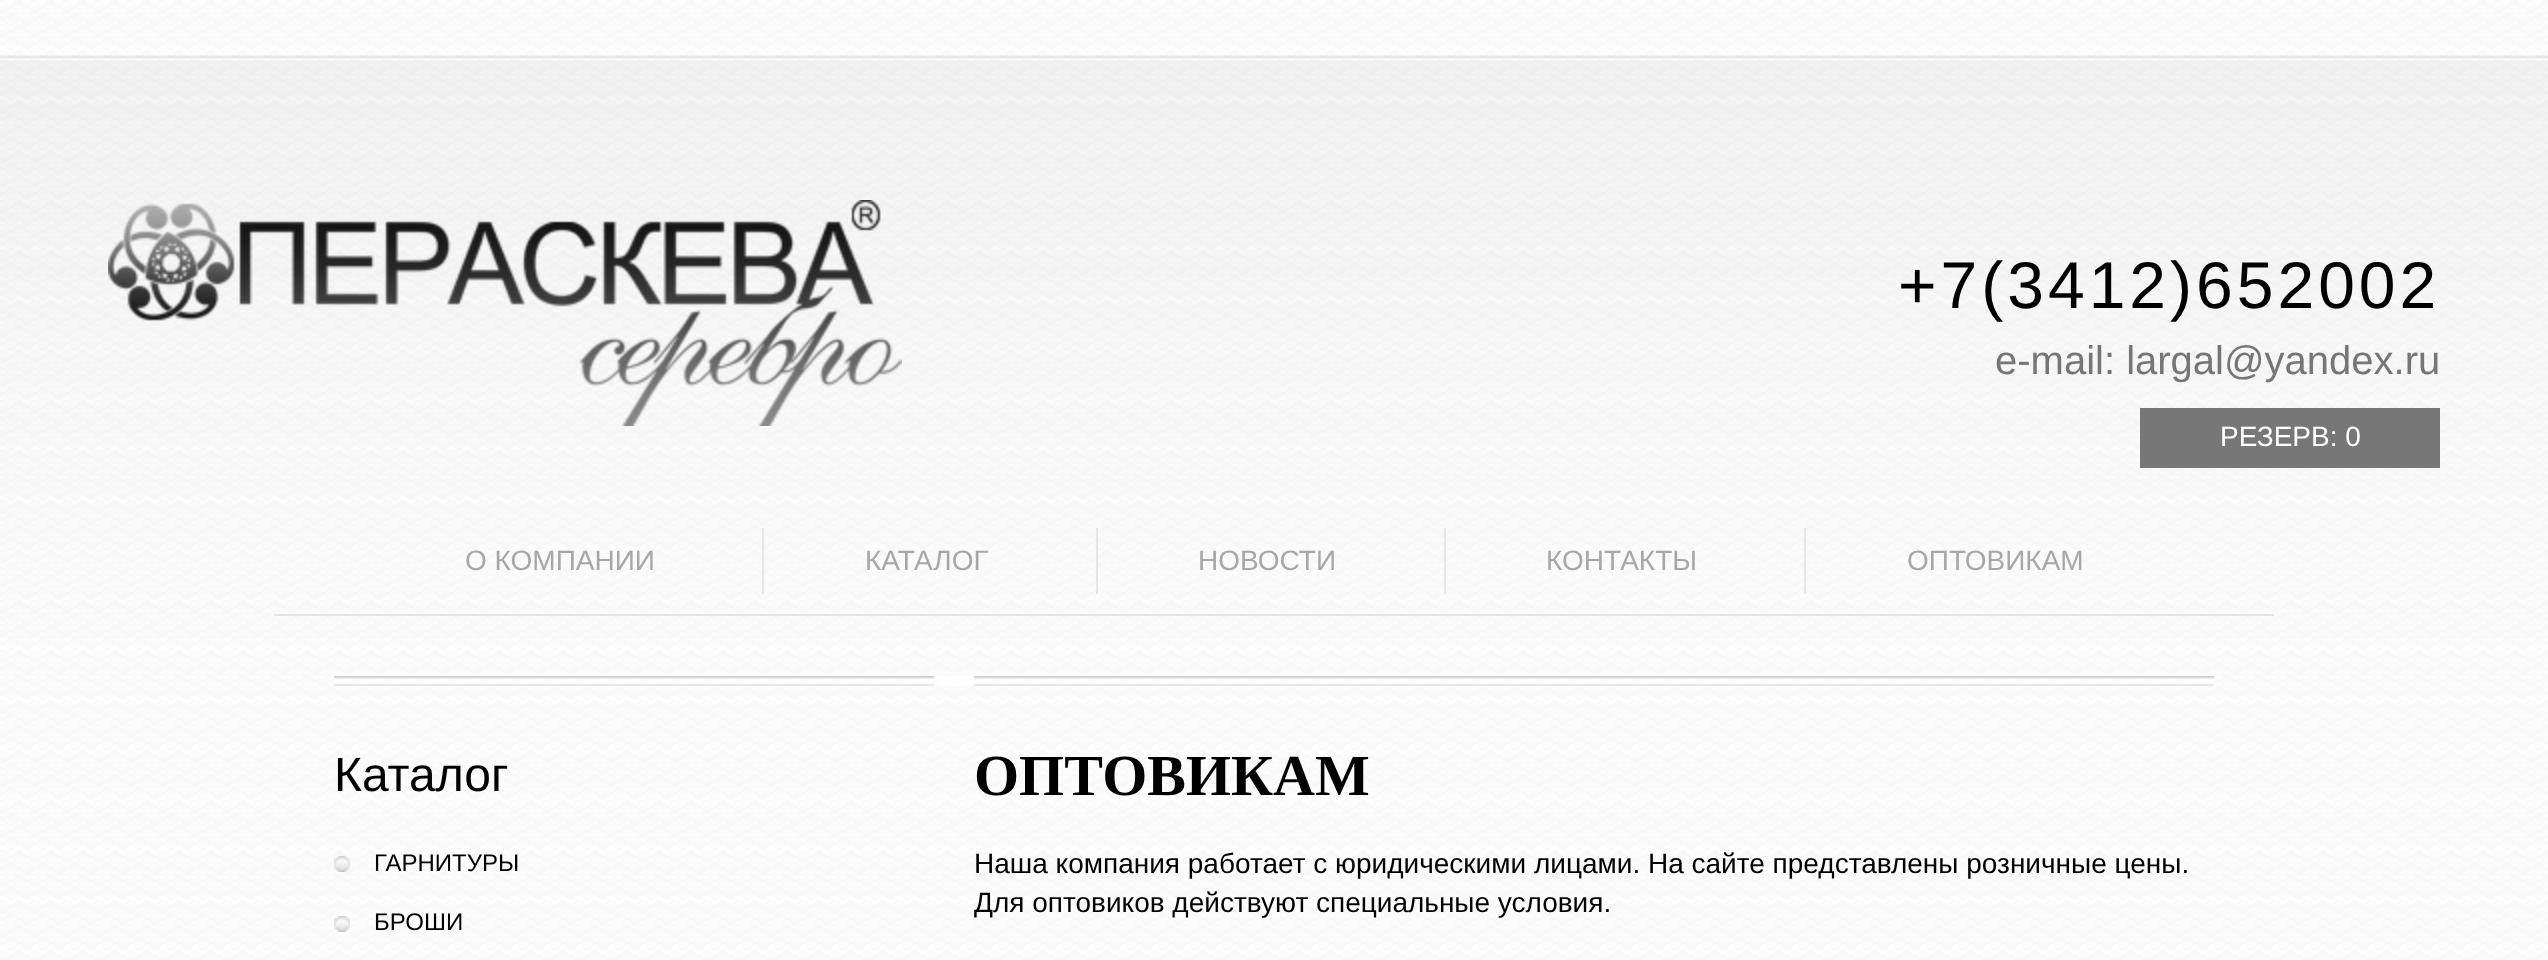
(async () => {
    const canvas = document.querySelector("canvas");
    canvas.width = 2548;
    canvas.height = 960;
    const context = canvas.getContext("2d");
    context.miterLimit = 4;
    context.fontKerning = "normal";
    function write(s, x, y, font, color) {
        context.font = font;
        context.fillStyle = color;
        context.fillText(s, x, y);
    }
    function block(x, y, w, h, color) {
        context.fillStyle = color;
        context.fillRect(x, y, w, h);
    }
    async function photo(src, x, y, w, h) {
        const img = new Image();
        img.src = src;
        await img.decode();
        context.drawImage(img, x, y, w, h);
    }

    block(0, 0, 2548, 960, "rgb(255, 255, 255)");
    await photo("media/1.png", 0, 0, 2548, 960);
    await photo("media/2.png", 108, 200, 794, 226);
    context.letterSpacing = "4px";
    write("+7(3412)652002", 1898, 308, "66px Liberation Sans", "rgb(0, 0, 0)");
    context.letterSpacing = "0px";
    write("е-mail: largal@yandex.ru", 1995, 374, "40px Liberation Sans", "rgb(119, 118, 118)");
    block(2140, 408, 300, 60, "rgb(119, 119, 119)");
    write("РЕЗЕРВ: 0", 2220, 446, "28px Liberation Sans", "rgb(255, 255, 255)");
    block(274, 614, 2000, 2, "rgb(229, 229, 229)");
    write("О КОМПАНИИ", 465, 570, "28px Liberation Sans", "rgb(167, 167, 167)");
    block(762, 528, 2, 66, "rgb(229, 229, 229)");
    write("КАТАЛОГ", 865, 570, "28px Liberation Sans", "rgb(167, 167, 167)");
    block(1096, 528, 2, 66, "rgb(229, 229, 229)");
    write("НОВОСТИ", 1198, 570, "28px Liberation Sans", "rgb(167, 167, 167)");
    block(1444, 528, 2, 66, "rgb(229, 229, 229)");
    write("КОНТАКТЫ", 1546, 570, "28px Liberation Sans", "rgb(167, 167, 167)");
    block(1804, 528, 2, 66, "rgb(229, 229, 229)");
    write("ОПТОВИКАМ", 1907, 570, "28px Liberation Sans", "rgb(167, 167, 167)");
    await photo("media/3.png", 334, 676, 1880, 10);
    write("Каталог", 334, 791, "48px Liberation Sans", "rgb(0, 0, 0)");
    await photo("media/4.png", 334, 856, 16, 16);
    write("ГАРНИТУРЫ", 374, 871, "24px Liberation Sans", "rgb(0, 0, 0)");
    await photo("media/4.png", 334, 916, 16, 16);
    write("БРОШИ", 374, 930, "24px Liberation Sans", "rgb(0, 0, 0)");
    write("ОПТОВИКАМ", 974, 795, "bold 58px Liberation Serif", "rgb(0, 0, 0)");
    write("Наша компания работает с юридическими лицами. На сайте представлены розничные цены.", 974, 873, "28px Liberation Sans", "rgb(0, 0, 0)");
    write("Для оптовиков действуют специальные условия.", 974, 912, "28px Liberation Sans", "rgb(0, 0, 0)");
})();
